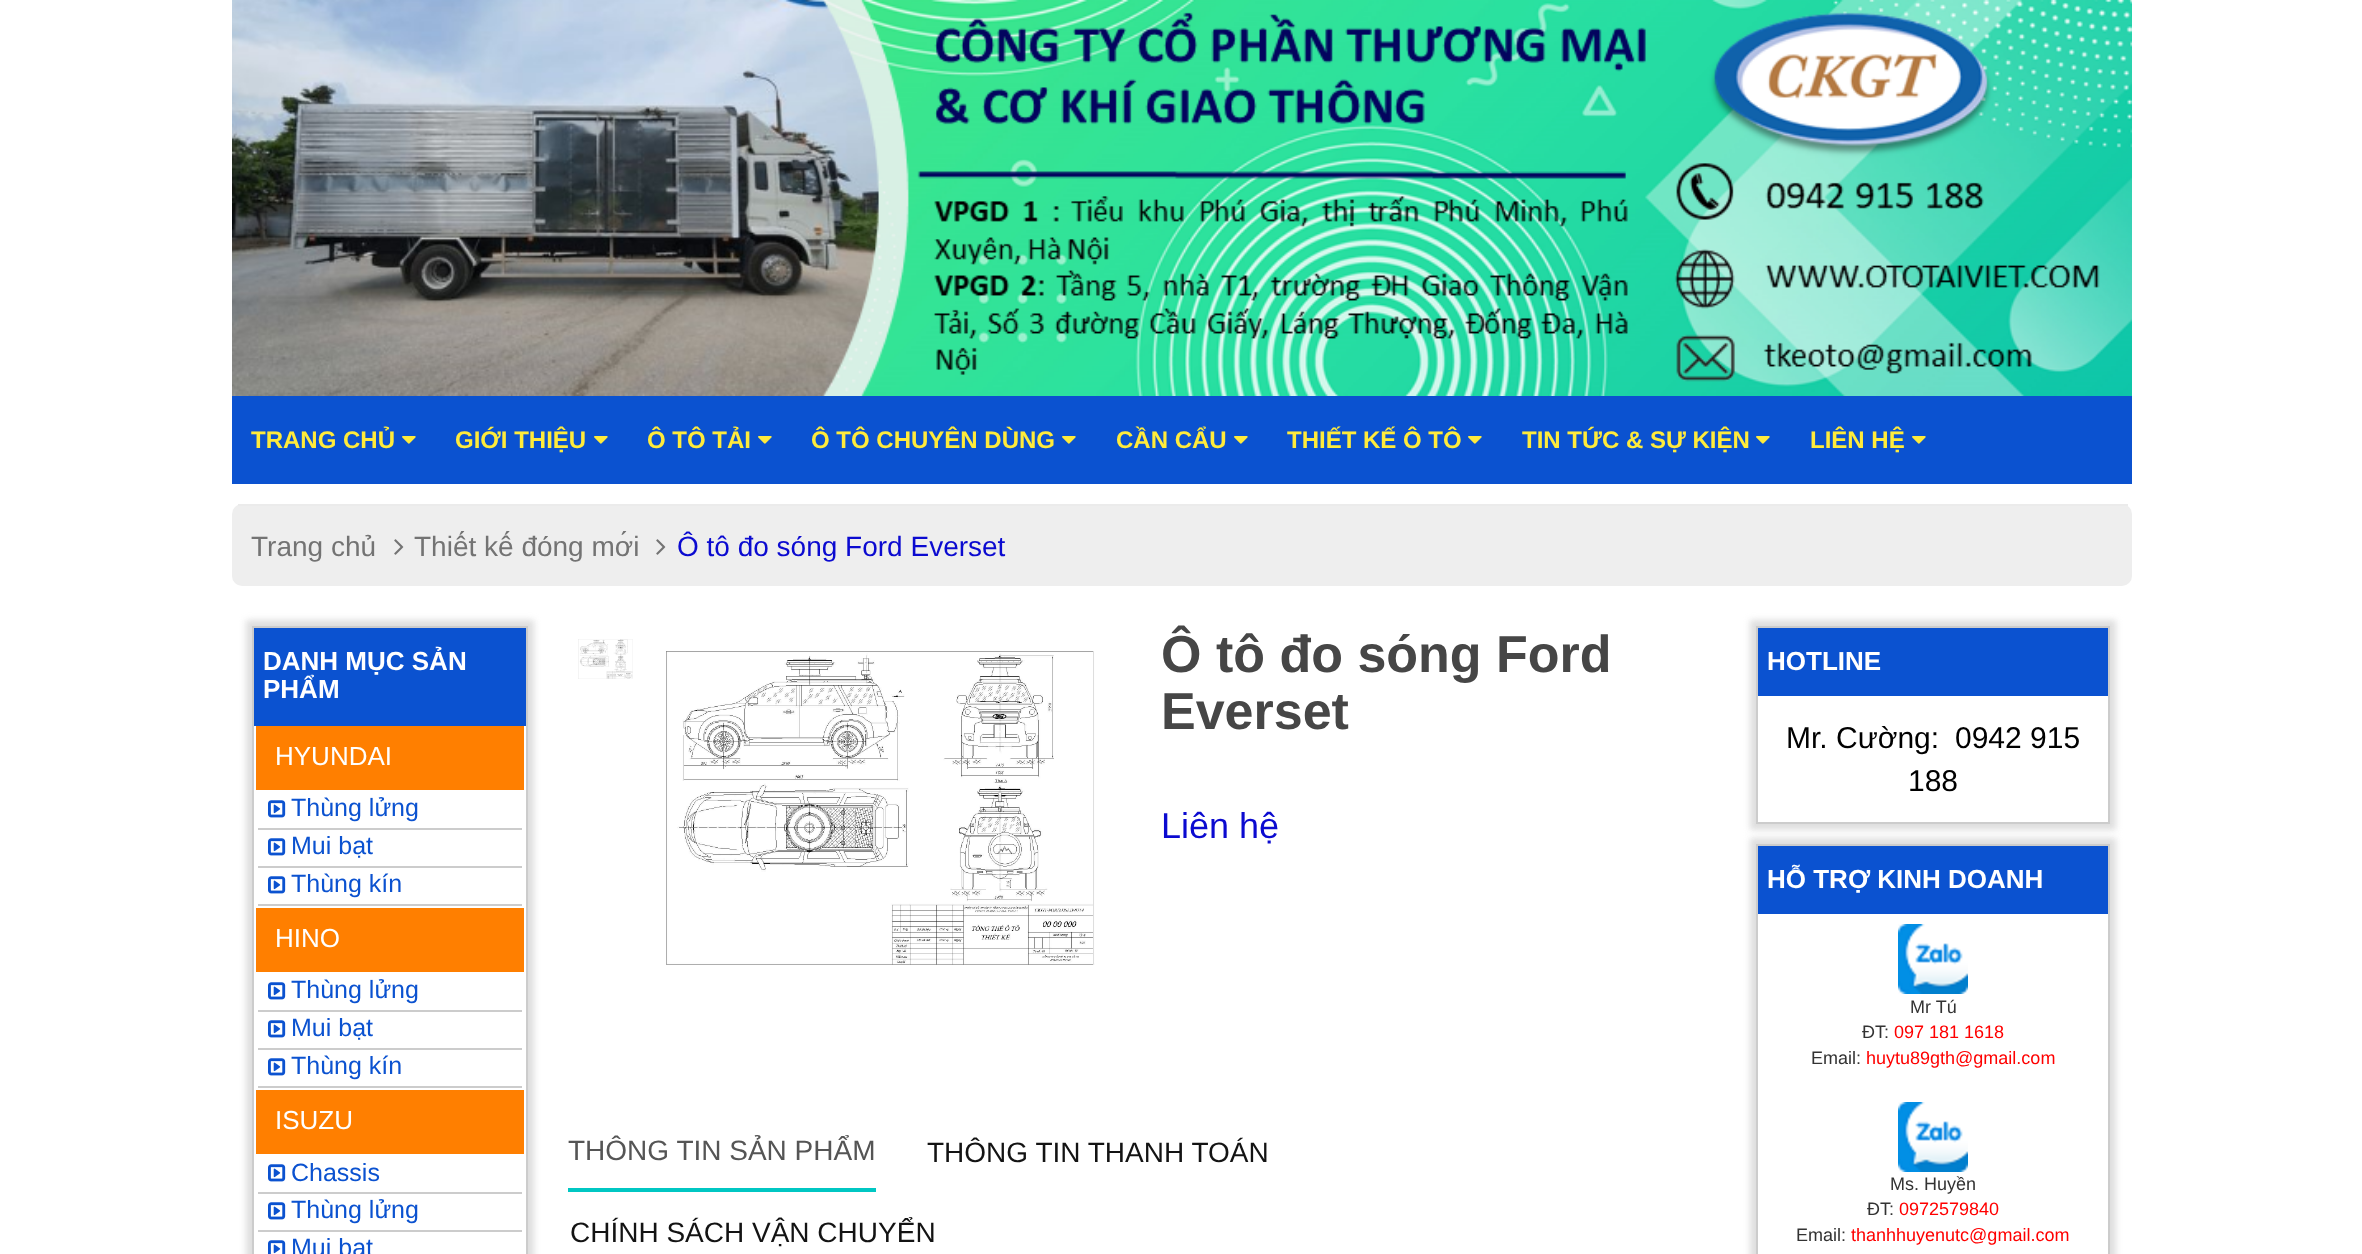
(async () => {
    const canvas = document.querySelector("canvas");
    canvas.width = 2362;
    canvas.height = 1254;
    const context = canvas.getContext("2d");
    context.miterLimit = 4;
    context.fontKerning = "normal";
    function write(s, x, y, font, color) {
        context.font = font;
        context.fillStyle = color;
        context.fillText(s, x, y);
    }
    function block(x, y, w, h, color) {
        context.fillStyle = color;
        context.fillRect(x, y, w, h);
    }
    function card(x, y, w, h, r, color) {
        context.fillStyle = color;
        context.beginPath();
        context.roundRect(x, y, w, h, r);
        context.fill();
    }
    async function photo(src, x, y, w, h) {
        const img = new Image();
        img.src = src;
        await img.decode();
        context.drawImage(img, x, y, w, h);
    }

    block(0, 0, 2362, 1254, "rgb(255, 255, 255)");
    await photo("media/1.png", 232, 0, 1900, 396);
    block(232, 396, 1900, 88, "rgb(11, 82, 208)");
    write("TRANG CHỦ", 251, 448, "bold 24px Liberation Sans", "rgb(255, 235, 59)");
    await photo("media/2.png", 402, 436, 14, 8);
    write("GIỚI THIỆU", 455, 448, "bold 24px Liberation Sans", "rgb(255, 235, 59)");
    await photo("media/2.png", 594, 436, 14, 8);
    write("Ô TÔ TẢI", 647, 448, "bold 24px Liberation Sans", "rgb(255, 235, 59)");
    await photo("media/2.png", 758, 436, 14, 8);
    write("Ô TÔ CHUYÊN DÙNG", 811, 448, "bold 24px Liberation Sans", "rgb(255, 235, 59)");
    await photo("media/2.png", 1062, 436, 14, 8);
    write("CẦN CẨU", 1116, 448, "bold 24px Liberation Sans", "rgb(255, 235, 59)");
    await photo("media/2.png", 1234, 436, 14, 8);
    write("THIẾT KẾ Ô TÔ", 1287, 448, "bold 24px Liberation Sans", "rgb(255, 235, 59)");
    await photo("media/2.png", 1468, 436, 14, 8);
    write("TIN TỨC & SỰ KIỆN", 1522, 448, "bold 24px Liberation Sans", "rgb(255, 235, 59)");
    await photo("media/2.png", 1756, 436, 14, 8);
    write("LIÊN HỆ", 1810, 448, "bold 24px Liberation Sans", "rgb(255, 235, 59)");
    await photo("media/2.png", 1912, 436, 14, 8);
    card(232, 504, 1900, 82, 10, "rgb(238, 238, 238)");
    block(238, 504, 1890, 2, "rgb(235, 235, 235)");
    write("Trang chủ", 251, 556, "28px Liberation Sans", "rgb(115, 115, 115)");
    await photo("media/3.png", 394, 539, 10, 16);
    write("Thiết kế đóng mới", 414, 556, "28px Liberation Sans", "rgb(115, 115, 115)");
    await photo("media/3.png", 656, 539, 10, 16);
    write("Ô tô đo sóng Ford Everset", 677, 556, "28px Liberation Sans", "rgb(11, 10, 208)");
    context.save();
    context.beginPath();
    context.moveTo(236, 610);
    context.lineTo(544, 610);
    context.lineTo(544, 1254);
    context.lineTo(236, 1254);
    context.closePath();
    context.moveTo(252, 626);
    context.lineTo(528, 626);
    context.lineTo(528, 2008);
    context.lineTo(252, 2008);
    context.closePath();
    context.clip("evenodd");
    context.fillStyle = "rgba(204, 204, 204, 0.64)";
    context.filter = "blur(3px)";
    context.beginPath();
    context.rect(246, 620, 288, 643);
    context.fill();
    context.filter = "none";
    context.restore();
    context.strokeStyle = "rgb(204, 204, 204)";
    context.lineWidth = 2;
    context.strokeRect(253, 627, 274, 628);
    block(254, 628, 272, 98, "rgb(11, 82, 208)");
    write("DANH MỤC SẢN", 263, 670, "bold 26px Liberation Sans", "rgb(255, 255, 255)");
    write("PHẨM", 263, 698, "bold 26px Liberation Sans", "rgb(255, 255, 255)");
    block(256, 726, 268, 64, "rgb(255, 127, 0)");
    write("HYUNDAI", 275, 765, "26px Liberation Sans", "rgb(255, 255, 255)");
    block(258, 828, 264, 2, "rgb(204, 204, 204)");
    await photo("media/4.png", 268, 800, 18, 18);
    write("Thùng lửng", 291, 816, "25px Liberation Sans", "rgb(11, 82, 208)");
    block(258, 866, 264, 2, "rgb(204, 204, 204)");
    await photo("media/4.png", 268, 838, 18, 18);
    write("Mui bạt", 291, 854, "25px Liberation Sans", "rgb(11, 82, 208)");
    block(258, 904, 264, 2, "rgb(204, 204, 204)");
    await photo("media/4.png", 268, 876, 18, 18);
    write("Thùng kín", 291, 892, "25px Liberation Sans", "rgb(11, 82, 208)");
    block(256, 908, 268, 64, "rgb(255, 127, 0)");
    write("HINO", 275, 947, "26px Liberation Sans", "rgb(255, 255, 255)");
    block(258, 1010, 264, 2, "rgb(204, 204, 204)");
    await photo("media/4.png", 268, 982, 18, 18);
    write("Thùng lửng", 291, 998, "25px Liberation Sans", "rgb(11, 82, 208)");
    block(258, 1048, 264, 2, "rgb(204, 204, 204)");
    await photo("media/4.png", 268, 1020, 18, 18);
    write("Mui bạt", 291, 1036, "25px Liberation Sans", "rgb(11, 82, 208)");
    block(258, 1086, 264, 2, "rgb(204, 204, 204)");
    await photo("media/4.png", 268, 1058, 18, 18);
    write("Thùng kín", 291, 1074, "25px Liberation Sans", "rgb(11, 82, 208)");
    block(256, 1090, 268, 64, "rgb(255, 127, 0)");
    write("ISUZU", 275, 1129, "26px Liberation Sans", "rgb(255, 255, 255)");
    block(258, 1192, 264, 2, "rgb(204, 204, 204)");
    await photo("media/4.png", 268, 1164, 18, 18);
    write("Chassis", 291, 1181, "25px Liberation Sans", "rgb(11, 82, 208)");
    block(258, 1230, 264, 2, "rgb(204, 204, 204)");
    await photo("media/4.png", 268, 1202, 18, 18);
    write("Thùng lửng", 291, 1218, "25px Liberation Sans", "rgb(11, 82, 208)");
    await photo("media/5.png", 268, 1240, 18, 14);
    write("Mui bạt", 291, 1256, "25px Liberation Sans", "rgb(11, 82, 208)");
    await photo("media/6.png", 578, 639, 55, 40);
    await photo("media/7.png", 666, 651, 429, 314);
    write("Ô tô đo sóng Ford", 1161, 672, "bold 52px Liberation Sans", "rgb(70, 70, 70)");
    write("Everset", 1161, 729, "bold 52px Liberation Sans", "rgb(70, 70, 70)");
    write("Liên hệ", 1161, 838, "36px Liberation Sans", "rgb(11, 10, 208)");
    block(568, 1188, 308, 4, "rgb(0, 199, 195)");
    write("THÔNG TIN SẢN PHẨM", 568, 1160, "28px Liberation Sans", "rgb(85, 85, 85)");
    write("THÔNG TIN THANH TOÁN", 927, 1162, "28px Liberation Sans", "rgb(19, 19, 19)");
    write("CHÍNH SÁCH VẬN CHUYỂN", 570, 1242, "28px Liberation Sans", "rgb(19, 19, 19)");
    context.save();
    context.beginPath();
    context.moveTo(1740, 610);
    context.lineTo(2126, 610);
    context.lineTo(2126, 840);
    context.lineTo(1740, 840);
    context.closePath();
    context.moveTo(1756, 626);
    context.lineTo(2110, 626);
    context.lineTo(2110, 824);
    context.lineTo(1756, 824);
    context.closePath();
    context.clip("evenodd");
    context.fillStyle = "rgba(204, 204, 204, 0.64)";
    context.filter = "blur(3px)";
    context.beginPath();
    context.rect(1750, 620, 366, 210);
    context.fill();
    context.filter = "none";
    context.restore();
    context.strokeRect(1757, 627, 352, 196);
    block(1758, 628, 350, 68, "rgb(11, 82, 208)");
    write("HOTLINE", 1767, 670, "bold 26px Liberation Sans", "rgb(255, 255, 255)");
    write("Mr. Cường:", 1786, 748, "30px Liberation Sans", "rgb(0, 0, 0)");
    write("0942 915", 1955, 748, "30px Liberation Sans", "rgb(0, 0, 0)");
    write("188", 1908, 791, "30px Liberation Sans", "rgb(0, 0, 0)");
    context.save();
    context.beginPath();
    context.moveTo(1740, 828);
    context.lineTo(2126, 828);
    context.lineTo(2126, 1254);
    context.lineTo(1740, 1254);
    context.closePath();
    context.moveTo(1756, 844);
    context.lineTo(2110, 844);
    context.lineTo(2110, 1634);
    context.lineTo(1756, 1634);
    context.closePath();
    context.clip("evenodd");
    context.fillStyle = "rgba(204, 204, 204, 0.64)";
    context.filter = "blur(3px)";
    context.beginPath();
    context.rect(1750, 838, 366, 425);
    context.fill();
    context.filter = "none";
    context.restore();
    context.strokeRect(1757, 845, 352, 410);
    block(1758, 846, 350, 68, "rgb(11, 82, 208)");
    write("HỖ TRỢ KINH DOANH", 1767, 888, "bold 26px Liberation Sans", "rgb(255, 255, 255)");
    await photo("media/8.png", 1898, 924, 70, 70);
    write("Mr Tú", 1910, 1013, "18px Liberation Sans", "rgb(51, 51, 51)");
    write("ĐT:", 1862, 1038, "18px Liberation Sans", "rgb(51, 51, 51)");
    write("097 181 1618", 1894, 1038, "18px Liberation Sans", "rgb(255, 0, 0)");
    write("Email:", 1811, 1064, "18px Liberation Sans", "rgb(51, 51, 51)");
    write("huytu89gth@gmail.com", 1866, 1064, "18px Liberation Sans", "rgb(255, 0, 0)");
    await photo("media/8.png", 1898, 1102, 70, 70);
    write("Ms. Huyền", 1890, 1190, "18px Liberation Sans", "rgb(51, 51, 51)");
    write("ĐT:", 1867, 1215, "18px Liberation Sans", "rgb(51, 51, 51)");
    write("0972579840", 1899, 1215, "18px Liberation Sans", "rgb(255, 0, 0)");
    write("Email:", 1796, 1241, "18px Liberation Sans", "rgb(51, 51, 51)");
    write("thanhhuyenutc@gmail.com", 1851, 1241, "18px Liberation Sans", "rgb(255, 0, 0)");
})();
